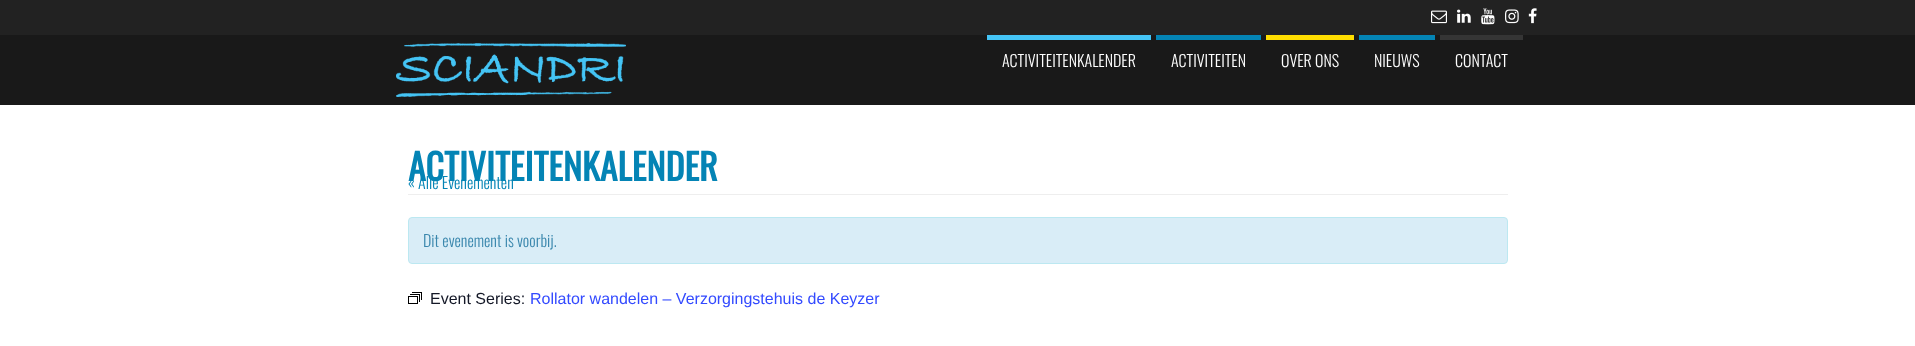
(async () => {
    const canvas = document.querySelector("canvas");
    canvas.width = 1915;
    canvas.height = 346;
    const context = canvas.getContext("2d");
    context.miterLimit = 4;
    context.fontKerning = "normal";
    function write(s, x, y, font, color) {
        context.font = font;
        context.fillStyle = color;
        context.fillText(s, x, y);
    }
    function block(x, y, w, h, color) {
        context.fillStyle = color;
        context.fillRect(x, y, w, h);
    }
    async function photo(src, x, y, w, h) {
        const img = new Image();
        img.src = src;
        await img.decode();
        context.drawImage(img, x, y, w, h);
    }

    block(0, 0, 1915, 346, "rgb(255, 255, 255)");
    block(0, 0, 1915, 35, "rgb(34, 34, 34)");
    await photo("media/1.png", 1431, 10, 16, 14);
    await photo("media/2.png", 1457, 9, 14, 14);
    await photo("media/3.png", 1481, 8, 14, 17);
    await photo("media/4.png", 1505, 9, 14, 15);
    await photo("media/5.png", 1528, 8, 9, 16);
    block(0, 35, 1915, 70, "rgb(25, 25, 25)");
    await photo("media/6.png", 396, 43, 230, 54);
    block(987, 35, 164, 5, "rgb(68, 196, 245)");
    write("ACTIVITEITENKALENDER", 1002, 67, "300 16px Oswald", "rgb(255, 255, 255)");
    block(1156, 35, 105, 5, "rgb(4, 132, 181)");
    write("ACTIVITEITEN", 1171, 67, "300 16px Oswald", "rgb(255, 255, 255)");
    block(1266, 35, 88, 5, "rgb(255, 221, 0)");
    write("OVER ONS", 1281, 67, "300 16px Oswald", "rgb(255, 255, 255)");
    block(1359, 35, 76, 5, "rgb(4, 132, 181)");
    write("NIEUWS", 1374, 67, "300 16px Oswald", "rgb(255, 255, 255)");
    block(1440, 35, 83, 5, "rgb(53, 53, 53)");
    write("CONTACT", 1455, 67, "300 16px Oswald", "rgb(255, 255, 255)");
    block(408, 194, 1100, 1, "rgb(238, 238, 238)");
    write("ACTIVITEITENKALENDER", 408, 181, "bold 36px Oswald", "rgb(4, 132, 181)");
    write("« Alle Evenementen", 408, 189, "300 16px Oswald", "rgb(4, 132, 181)");
    context.fillStyle = "rgb(217, 237, 247)";
    context.beginPath();
    context.roundRect(408.5, 217.5, 1099, 46, 3.5);
    context.fill();
    context.strokeStyle = "rgb(188, 232, 241)";
    context.stroke();
    write("Dit evenement is voorbij.", 423, 247, "300 16px Oswald", "rgb(58, 135, 173)");
    await photo("media/7.png", 408, 292, 14, 12);
    write("Event Series:", 430, 304, "16px Liberation Sans", "rgb(20, 24, 39)");
    write("Rollator wandelen – Verzorgingstehuis de Keyzer", 530, 304, "16px Liberation Sans", "rgb(51, 74, 255)");
})();
